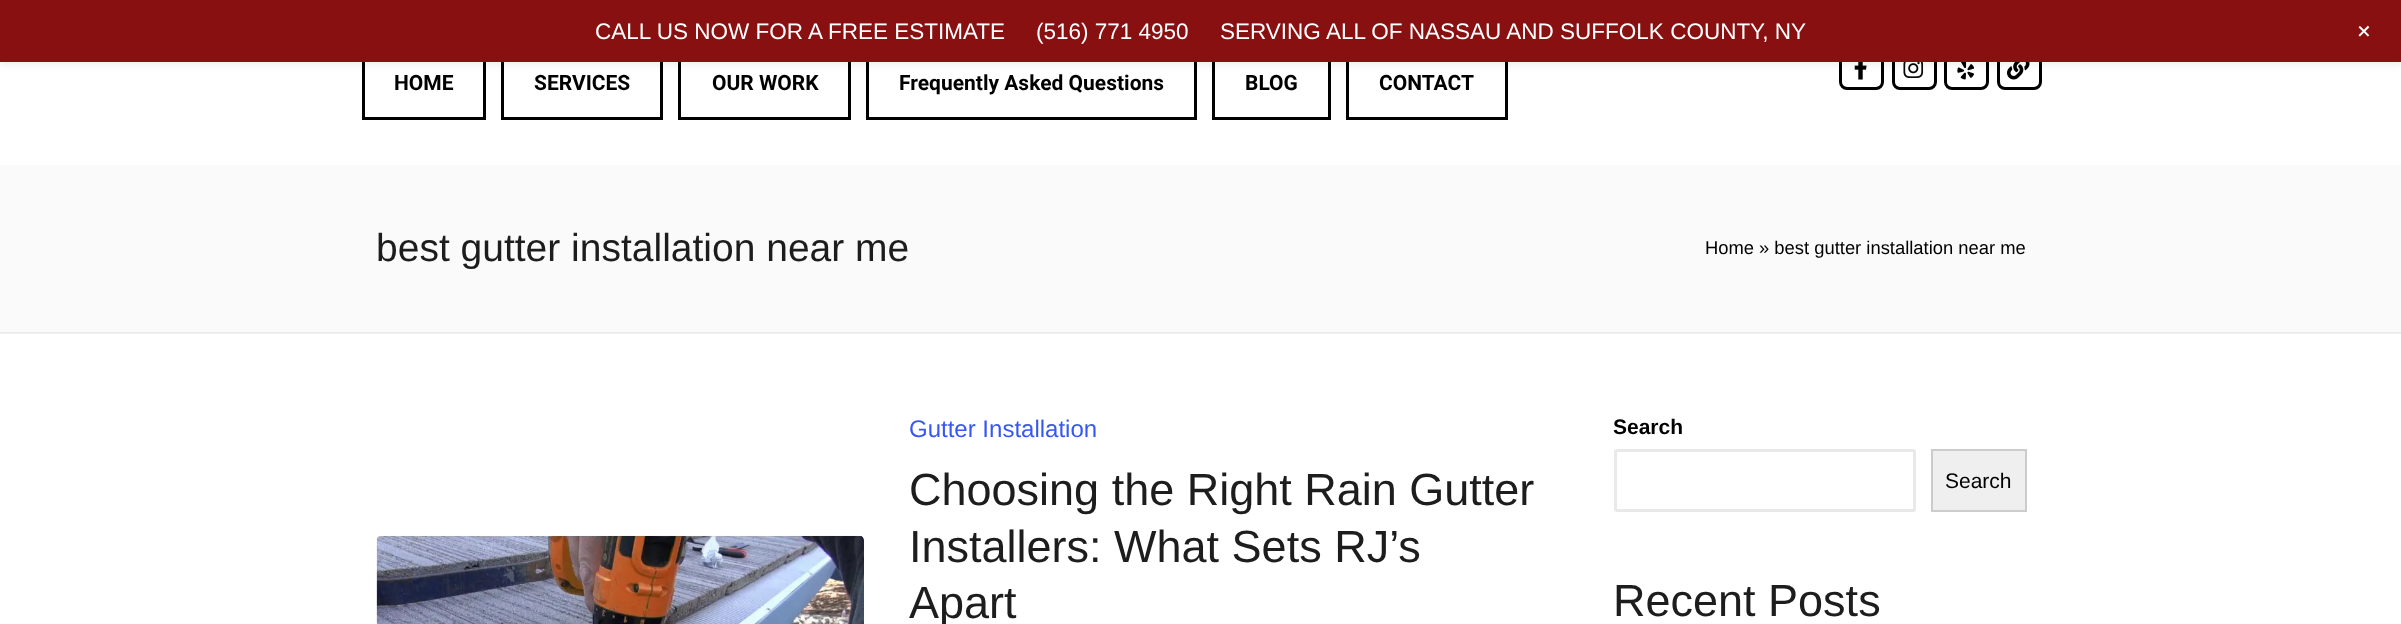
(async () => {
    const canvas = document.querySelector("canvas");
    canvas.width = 2401;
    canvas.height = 624;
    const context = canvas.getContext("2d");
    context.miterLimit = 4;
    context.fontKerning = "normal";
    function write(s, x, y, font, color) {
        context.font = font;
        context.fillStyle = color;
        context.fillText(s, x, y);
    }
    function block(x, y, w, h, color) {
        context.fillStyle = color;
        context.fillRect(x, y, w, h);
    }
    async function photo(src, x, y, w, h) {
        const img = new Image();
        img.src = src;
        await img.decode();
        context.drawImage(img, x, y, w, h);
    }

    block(0, 0, 2401, 624, "rgb(255, 255, 255)");
    block(0, 333, 2401, 1, "rgb(240, 240, 240)");
    context.strokeStyle = "rgb(0, 0, 0)";
    context.lineWidth = 3;
    context.strokeRect(363.5, 46.5, 121, 72);
    context.strokeRect(502.5, 46.5, 159, 72);
    context.strokeRect(679.5, 46.5, 170, 72);
    context.strokeRect(867.5, 46.5, 328, 72);
    context.strokeRect(1213.5, 46.5, 116, 72);
    context.strokeRect(1347.5, 46.5, 159, 72);
    context.beginPath();
    context.roundRect(1840.5, 46.5, 42, 42, 6.5);
    context.stroke();
    await photo("media/1.png", 1854, 62, 13, 18);
    context.beginPath();
    context.roundRect(1893.5, 46.5, 42, 42, 6.5);
    context.stroke();
    await photo("media/2.png", 1903, 62, 21, 16);
    context.beginPath();
    context.roundRect(1945.5, 46.5, 42, 42, 6.5);
    context.stroke();
    await photo("media/3.png", 1957, 62, 18, 18);
    context.beginPath();
    context.roundRect(1998.5, 46.5, 42, 42, 6.5);
    context.stroke();
    await photo("media/4.png", 2007, 62, 23, 18);
    context.fillStyle = "rgba(0, 0, 0, 0.05)";
    context.filter = "blur(3px)";
    context.beginPath();
    context.rect(0, 5, 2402, 61);
    context.fill();
    context.filter = "none";
    block(0, 0, 2401, 62, "rgb(137, 16, 16)");
    write("CALL US NOW FOR A FREE ESTIMATE", 595, 39, "22.5px Liberation Sans", "rgb(255, 255, 255)");
    write("(516) 771 4950", 1036, 39, "22.5px Liberation Sans", "rgb(255, 255, 255)");
    write("SERVING ALL OF NASSAU AND SUFFOLK COUNTY, NY", 1220, 39, "22.5px Liberation Sans", "rgb(255, 255, 255)");
    context.font = "27px Liberation Sans";
    context.save();
    context.translate(2352, 32);
    context.rotate(45 * Math.PI / 180);
    context.fillText("+", 0, 0);
    context.restore();
    write("HOME", 394, 90, "bold 21px Roboto", "rgb(0, 0, 0)");
    write("SERVICES", 534, 90, "bold 21px Roboto", "rgb(0, 0, 0)");
    write("OUR WORK", 712, 90, "bold 21px Roboto", "rgb(0, 0, 0)");
    write("Frequently Asked Questions", 899, 90, "bold 21px Roboto", "rgb(0, 0, 0)");
    write("BLOG", 1245, 90, "bold 21px Roboto", "rgb(0, 0, 0)");
    write("CONTACT", 1379, 90, "bold 21px Roboto", "rgb(0, 0, 0)");
    block(0, 165, 2401, 167, "rgb(250, 250, 250)");
    block(0, 332, 2401, 1, "rgb(235, 235, 235)");
    write("best gutter installation near me", 376, 261, "39px Liberation Sans", "rgb(29, 29, 29)");
    write("Home", 1705, 254, "18.4px Liberation Sans", "rgb(0, 0, 0)");
    write("» best gutter installation near me", 1759, 254, "18.4px Liberation Sans", "rgb(0, 0, 0)");
    await photo("media/5.png", 376, 535, 488, 89);
    write("Gutter Installation", 909, 437, "24px Liberation Sans", "rgb(56, 87, 241)");
    write("Choosing the Right Rain Gutter", 909, 505, "45px Liberation Sans", "rgb(29, 29, 29)");
    write("Installers: What Sets RJ’s", 909, 562, "45px Liberation Sans", "rgb(29, 29, 29)");
    write("Apart", 909, 618, "45px Liberation Sans", "rgb(29, 29, 29)");
    write("Search", 1613, 434, "bold 21px Liberation Sans", "rgb(0, 0, 0)");
    context.beginPath();
    context.roundRect(1615.5, 450.5, 299, 60, 1.5);
    context.strokeStyle = "rgb(233, 233, 233)";
    context.stroke();
    context.fillStyle = "rgb(239, 239, 239)";
    context.beginPath();
    context.rect(1932, 450, 94, 61);
    context.fill();
    context.strokeStyle = "rgb(204, 204, 204)";
    context.lineWidth = 2;
    context.stroke();
    write("Search", 1945, 488, "21px Liberation Sans", "rgb(0, 0, 0)");
    write("Recent Posts", 1613, 616, "45px Liberation Sans", "rgb(29, 29, 29)");
})();
